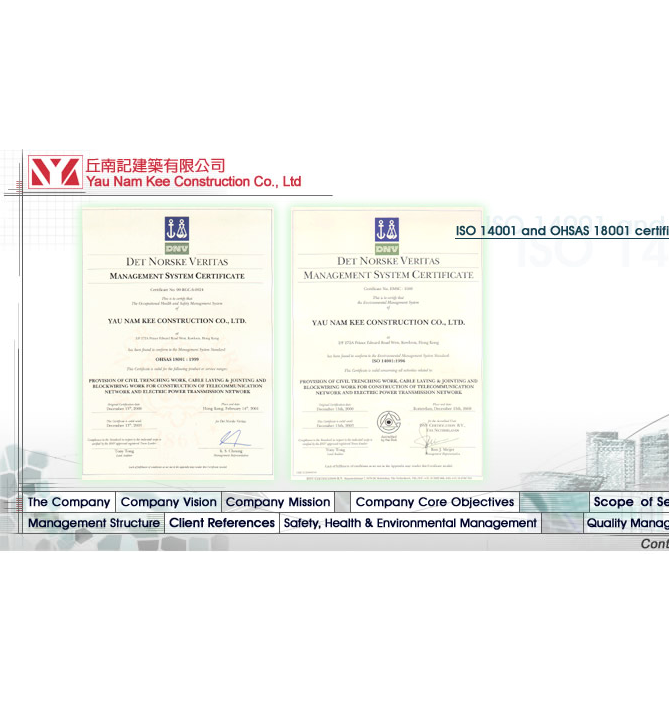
(async () => {
    const canvas = document.querySelector("canvas");
    canvas.width = 669;
    canvas.height = 701;
    const context = canvas.getContext("2d");
    context.miterLimit = 4;
    context.fontKerning = "normal";
    function block(x, y, w, h, color) {
        context.fillStyle = color;
        context.fillRect(x, y, w, h);
    }
    async function photo(src, x, y, w, h) {
        const img = new Image();
        img.src = src;
        await img.decode();
        context.drawImage(img, x, y, w, h);
    }

    block(0, 0, 669, 701, "rgb(255, 255, 255)");
    await photo("media/1.png", 0, 149, 26, 46);
    await photo("media/2.png", 26, 149, 280, 46);
    await photo("media/3.png", 0, 195, 26, 295);
    await photo("media/4.png", 26, 195, 643, 295);
    await photo("media/5.png", 0, 490, 26, 63);
    await photo("media/6.png", 26, 490, 88, 21);
    await photo("media/7.png", 114, 490, 106, 21);
    await photo("media/8.png", 220, 490, 113, 21);
    await photo("media/9.png", 333, 490, 20, 21);
    await photo("media/10.png", 353, 490, 162, 21);
    await photo("media/11.png", 515, 490, 78, 21);
    await photo("media/12.png", 593, 490, 76, 21);
    await photo("media/13.png", 26, 511, 137, 21);
    await photo("media/14.png", 163, 511, 115, 21);
    await photo("media/15.png", 278, 511, 264, 21);
    await photo("media/16.png", 542, 511, 127, 21);
    await photo("media/17.png", 26, 532, 613, 20);
    await photo("media/18.png", 639, 532, 30, 22);
})();
